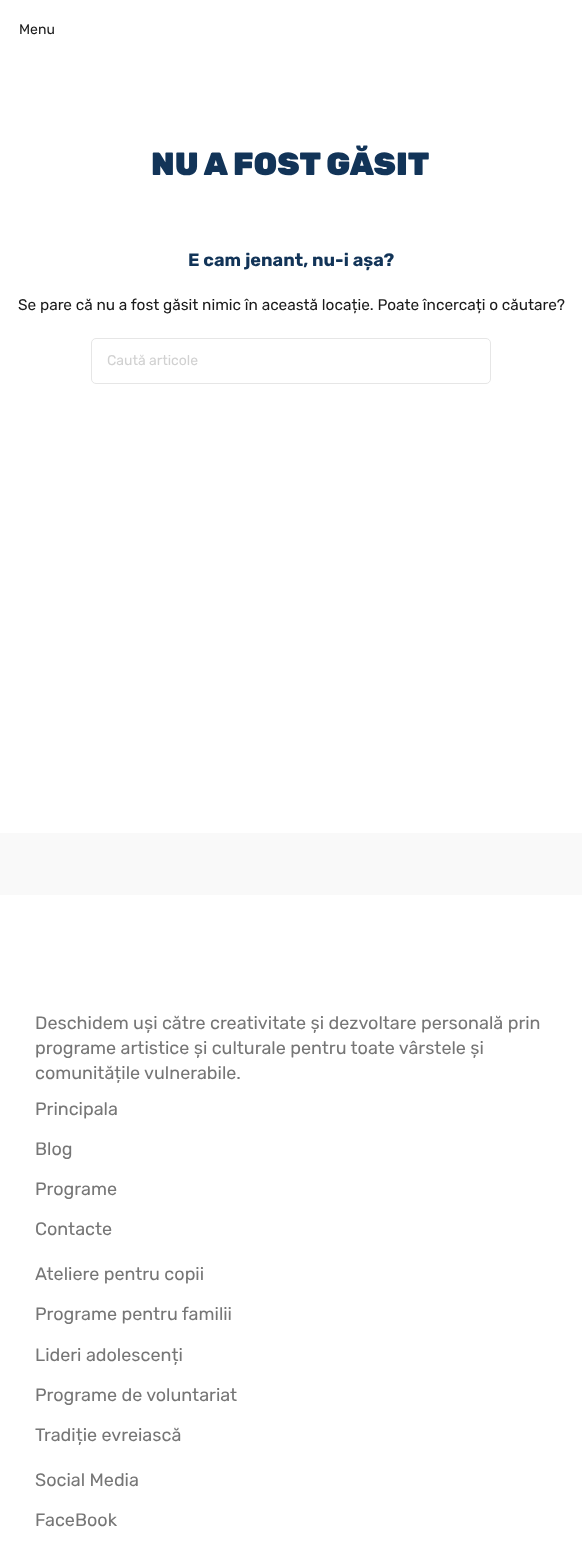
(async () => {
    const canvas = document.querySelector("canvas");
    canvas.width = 582;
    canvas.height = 1546;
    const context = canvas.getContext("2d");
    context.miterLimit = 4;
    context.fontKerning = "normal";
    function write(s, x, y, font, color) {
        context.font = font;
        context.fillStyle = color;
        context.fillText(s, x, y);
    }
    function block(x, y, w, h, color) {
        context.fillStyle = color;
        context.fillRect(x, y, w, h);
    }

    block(0, 0, 582, 1546, "rgb(255, 255, 255)");
    write("Menu", 19, 34, "14px Rubik", "rgb(26, 26, 26)");
    write("NU A FOST GĂSIT", 151, 175, "900 32px Rubik", "rgb(18, 52, 88)");
    write("E cam jenant, nu-i așa?", 188, 266, "bold 18px Rubik", "rgb(18, 52, 88)");
    write("Se pare că nu a fost găsit nimic în această locație. Poate încercați o căutare?", 18, 310, "15.4px Rubik", "rgb(26, 26, 26)");
    context.beginPath();
    context.roundRect(91.5, 338.5, 399, 45, 4.5);
    context.strokeStyle = "rgb(230, 230, 230)";
    context.stroke();
    write("Caută articole", 107, 365, "14px Rubik", "rgb(209, 209, 209)");
    block(0, 833, 582, 62, "rgb(249, 249, 249)");
    write("Deschidem uși către creativitate și dezvoltare personală prin", 35, 1029, "18px Rubik", "rgb(118, 118, 118)");
    write("programe artistice și culturale pentru toate vârstele și", 35, 1054, "18px Rubik", "rgb(118, 118, 118)");
    write("comunitățile vulnerabile.", 35, 1079, "18px Rubik", "rgb(118, 118, 118)");
    write("Principala", 35, 1115, "18px Rubik", "rgb(118, 118, 118)");
    write("Blog", 35, 1155, "18px Rubik", "rgb(118, 118, 118)");
    write("Programe", 35, 1195, "18px Rubik", "rgb(118, 118, 118)");
    write("Contacte", 35, 1235, "18px Rubik", "rgb(118, 118, 118)");
    write("Ateliere pentru copii", 35, 1280, "18px Rubik", "rgb(118, 118, 118)");
    write("Programe pentru familii", 35, 1320, "18px Rubik", "rgb(118, 118, 118)");
    write("Lideri adolescenți", 35, 1361, "18px Rubik", "rgb(118, 118, 118)");
    write("Programe de voluntariat", 35, 1401, "18px Rubik", "rgb(118, 118, 118)");
    write("Tradiție evreiască", 35, 1441, "18px Rubik", "rgb(118, 118, 118)");
    write("Social Media", 35, 1486, "18px Rubik", "rgb(118, 118, 118)");
    write("FaceBook", 35, 1526, "18px Rubik", "rgb(118, 118, 118)");
})();
